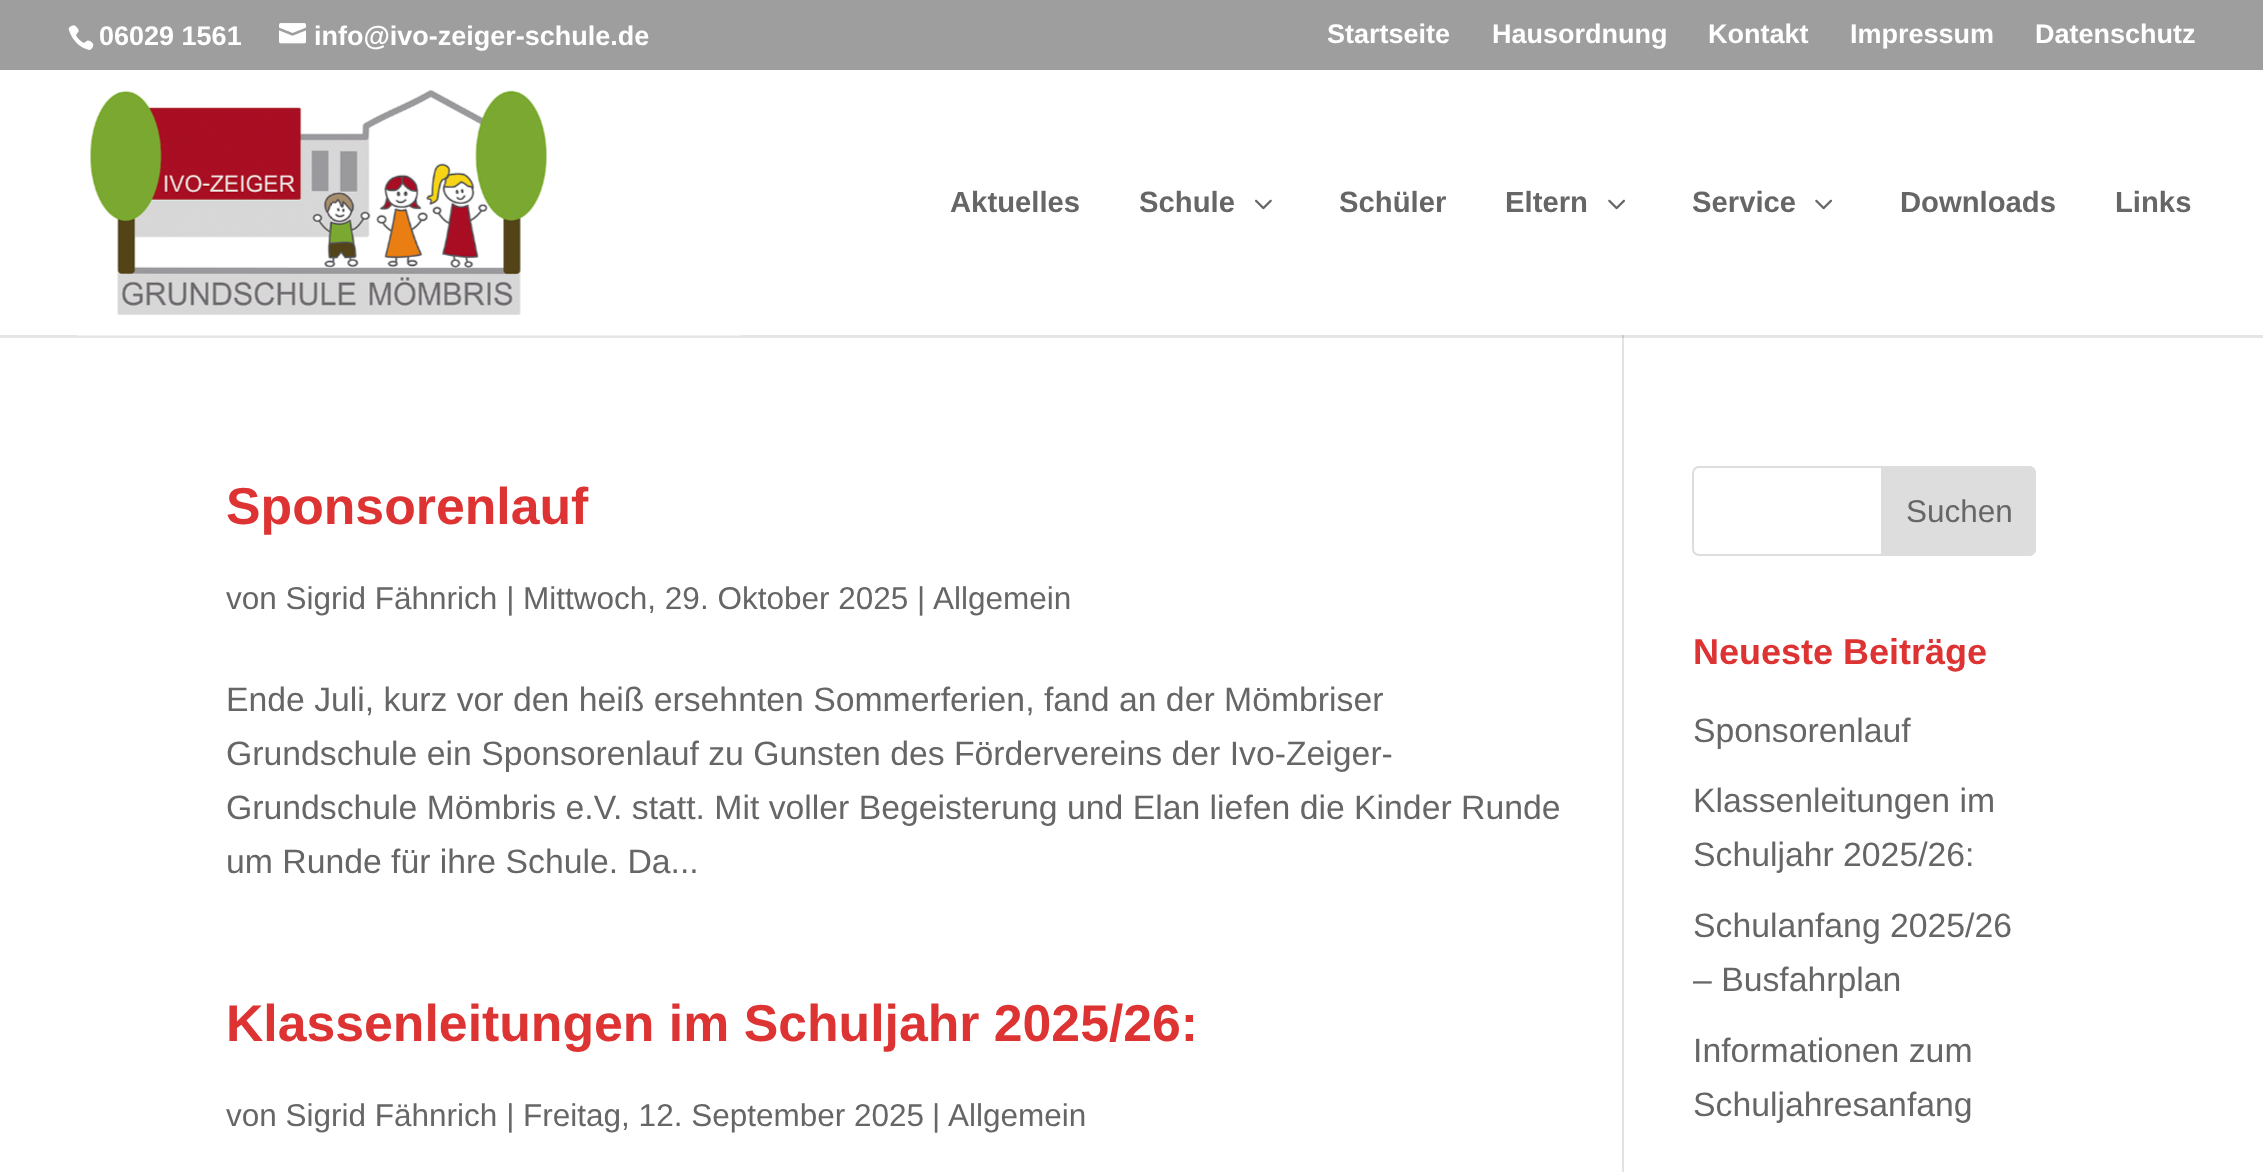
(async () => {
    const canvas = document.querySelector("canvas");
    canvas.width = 2263;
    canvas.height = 1172;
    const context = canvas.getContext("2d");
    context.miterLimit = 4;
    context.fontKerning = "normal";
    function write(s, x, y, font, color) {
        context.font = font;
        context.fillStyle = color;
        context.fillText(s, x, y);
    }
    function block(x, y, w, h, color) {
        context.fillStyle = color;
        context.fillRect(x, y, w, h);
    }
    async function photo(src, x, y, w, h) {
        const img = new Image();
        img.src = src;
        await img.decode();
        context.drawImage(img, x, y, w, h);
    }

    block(0, 0, 2263, 1172, "rgb(255, 255, 255)");
    block(0, 0, 2263, 70, "rgb(158, 158, 158)");
    await photo("media/1.png", 68, 25, 26, 25);
    write("06029 1561", 99, 45, "bold 27px Liberation Sans", "rgb(255, 255, 255)");
    await photo("media/2.png", 279, 23, 27, 21);
    write("info@ivo-zeiger-schule.de", 314, 45, "bold 27px Liberation Sans", "rgb(255, 255, 255)");
    write("Startseite", 1327, 43, "bold 27px Liberation Sans", "rgb(255, 255, 255)");
    write("Hausordnung", 1492, 43, "bold 27px Liberation Sans", "rgb(255, 255, 255)");
    write("Kontakt", 1708, 43, "bold 27px Liberation Sans", "rgb(255, 255, 255)");
    write("Impressum", 1850, 43, "bold 27px Liberation Sans", "rgb(255, 255, 255)");
    write("Datenschutz", 2035, 43, "bold 27px Liberation Sans", "rgb(255, 255, 255)");
    block(1622, 335, 2, 837, "rgb(226, 226, 226)");
    context.fillStyle = "rgba(0, 0, 0, 0.1)";
    context.beginPath();
    context.moveTo(0, 335);
    context.lineTo(0, 338);
    context.lineTo(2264, 338);
    context.lineTo(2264, 72);
    context.lineTo(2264, 335);
    context.closePath();
    context.fill();
    await photo("media/3.png", 77, 89, 664, 247);
    write("Aktuelles", 950, 212, "bold 29.25px Liberation Sans", "rgb(102, 102, 102)");
    write("Schule", 1139, 212, "bold 29.25px Liberation Sans", "rgb(102, 102, 102)");
    await photo("media/4.png", 1255, 199, 17, 11);
    write("Schüler", 1339, 212, "bold 29.25px Liberation Sans", "rgb(102, 102, 102)");
    write("Eltern", 1505, 212, "bold 29.25px Liberation Sans", "rgb(102, 102, 102)");
    await photo("media/5.png", 1608, 199, 17, 11);
    write("Service", 1692, 212, "bold 29.25px Liberation Sans", "rgb(102, 102, 102)");
    await photo("media/5.png", 1815, 199, 17, 11);
    write("Downloads", 1900, 212, "bold 29.25px Liberation Sans", "rgb(102, 102, 102)");
    write("Links", 2115, 212, "bold 29.25px Liberation Sans", "rgb(102, 102, 102)");
    write("Sponsorenlauf", 226, 524, "bold 51.75px Liberation Sans", "rgb(221, 51, 51)");
    write("von Sigrid Fähnrich | Mittwoch, 29. Oktober 2025", 226, 609, "31.5px Liberation Sans", "rgb(102, 102, 102)");
    write("|", 917, 609, "31.5px Liberation Sans", "rgb(102, 102, 102)");
    write("Allgemein", 933, 609, "31.5px Liberation Sans", "rgb(102, 102, 102)");
    write("Ende Juli, kurz vor den heiß ersehnten Sommerferien, fand an der Mömbriser", 226, 711, "33.75px Liberation Sans", "rgb(102, 102, 102)");
    write("Grundschule ein Sponsorenlauf zu Gunsten des Fördervereins der Ivo-Zeiger-", 226, 765, "33.75px Liberation Sans", "rgb(102, 102, 102)");
    write("Grundschule Mömbris e.V. statt. Mit voller Begeisterung und Elan liefen die Kinder Runde", 226, 819, "33.75px Liberation Sans", "rgb(102, 102, 102)");
    write("um Runde für ihre Schule. Da...", 226, 873, "33.75px Liberation Sans", "rgb(102, 102, 102)");
    write("Klassenleitungen im Schuljahr 2025/26:", 226, 1041, "bold 51.75px Liberation Sans", "rgb(221, 51, 51)");
    write("von Sigrid Fähnrich | Freitag, 12. September 2025", 226, 1126, "31.5px Liberation Sans", "rgb(102, 102, 102)");
    write("|", 932, 1126, "31.5px Liberation Sans", "rgb(102, 102, 102)");
    write("Allgemein", 948, 1126, "31.5px Liberation Sans", "rgb(102, 102, 102)");
    context.beginPath();
    context.roundRect(1693, 467, 342, 88, 6);
    context.strokeStyle = "rgb(221, 221, 221)";
    context.lineWidth = 2;
    context.stroke();
    context.fillStyle = "rgb(221, 221, 221)";
    context.beginPath();
    context.roundRect(1882, 467, 153, 88, [0, 6, 6, 0]);
    context.fill();
    context.stroke();
    write("Suchen", 1906, 522, "31.5px Liberation Sans", "rgb(102, 102, 102)");
    write("Neueste Beiträge", 1693, 664, "bold 36px Liberation Sans", "rgb(221, 51, 51)");
    write("Sponsorenlauf", 1693, 742, "33.75px Liberation Sans", "rgb(102, 102, 102)");
    write("Klassenleitungen im", 1693, 812, "33.75px Liberation Sans", "rgb(102, 102, 102)");
    write("Schuljahr 2025/26:", 1693, 866, "33.75px Liberation Sans", "rgb(102, 102, 102)");
    write("Schulanfang 2025/26", 1693, 937, "33.75px Liberation Sans", "rgb(102, 102, 102)");
    write("– Busfahrplan", 1693, 991, "33.75px Liberation Sans", "rgb(102, 102, 102)");
    write("Informationen zum", 1693, 1062, "33.75px Liberation Sans", "rgb(102, 102, 102)");
    write("Schuljahresanfang", 1693, 1116, "33.75px Liberation Sans", "rgb(102, 102, 102)");
})();
